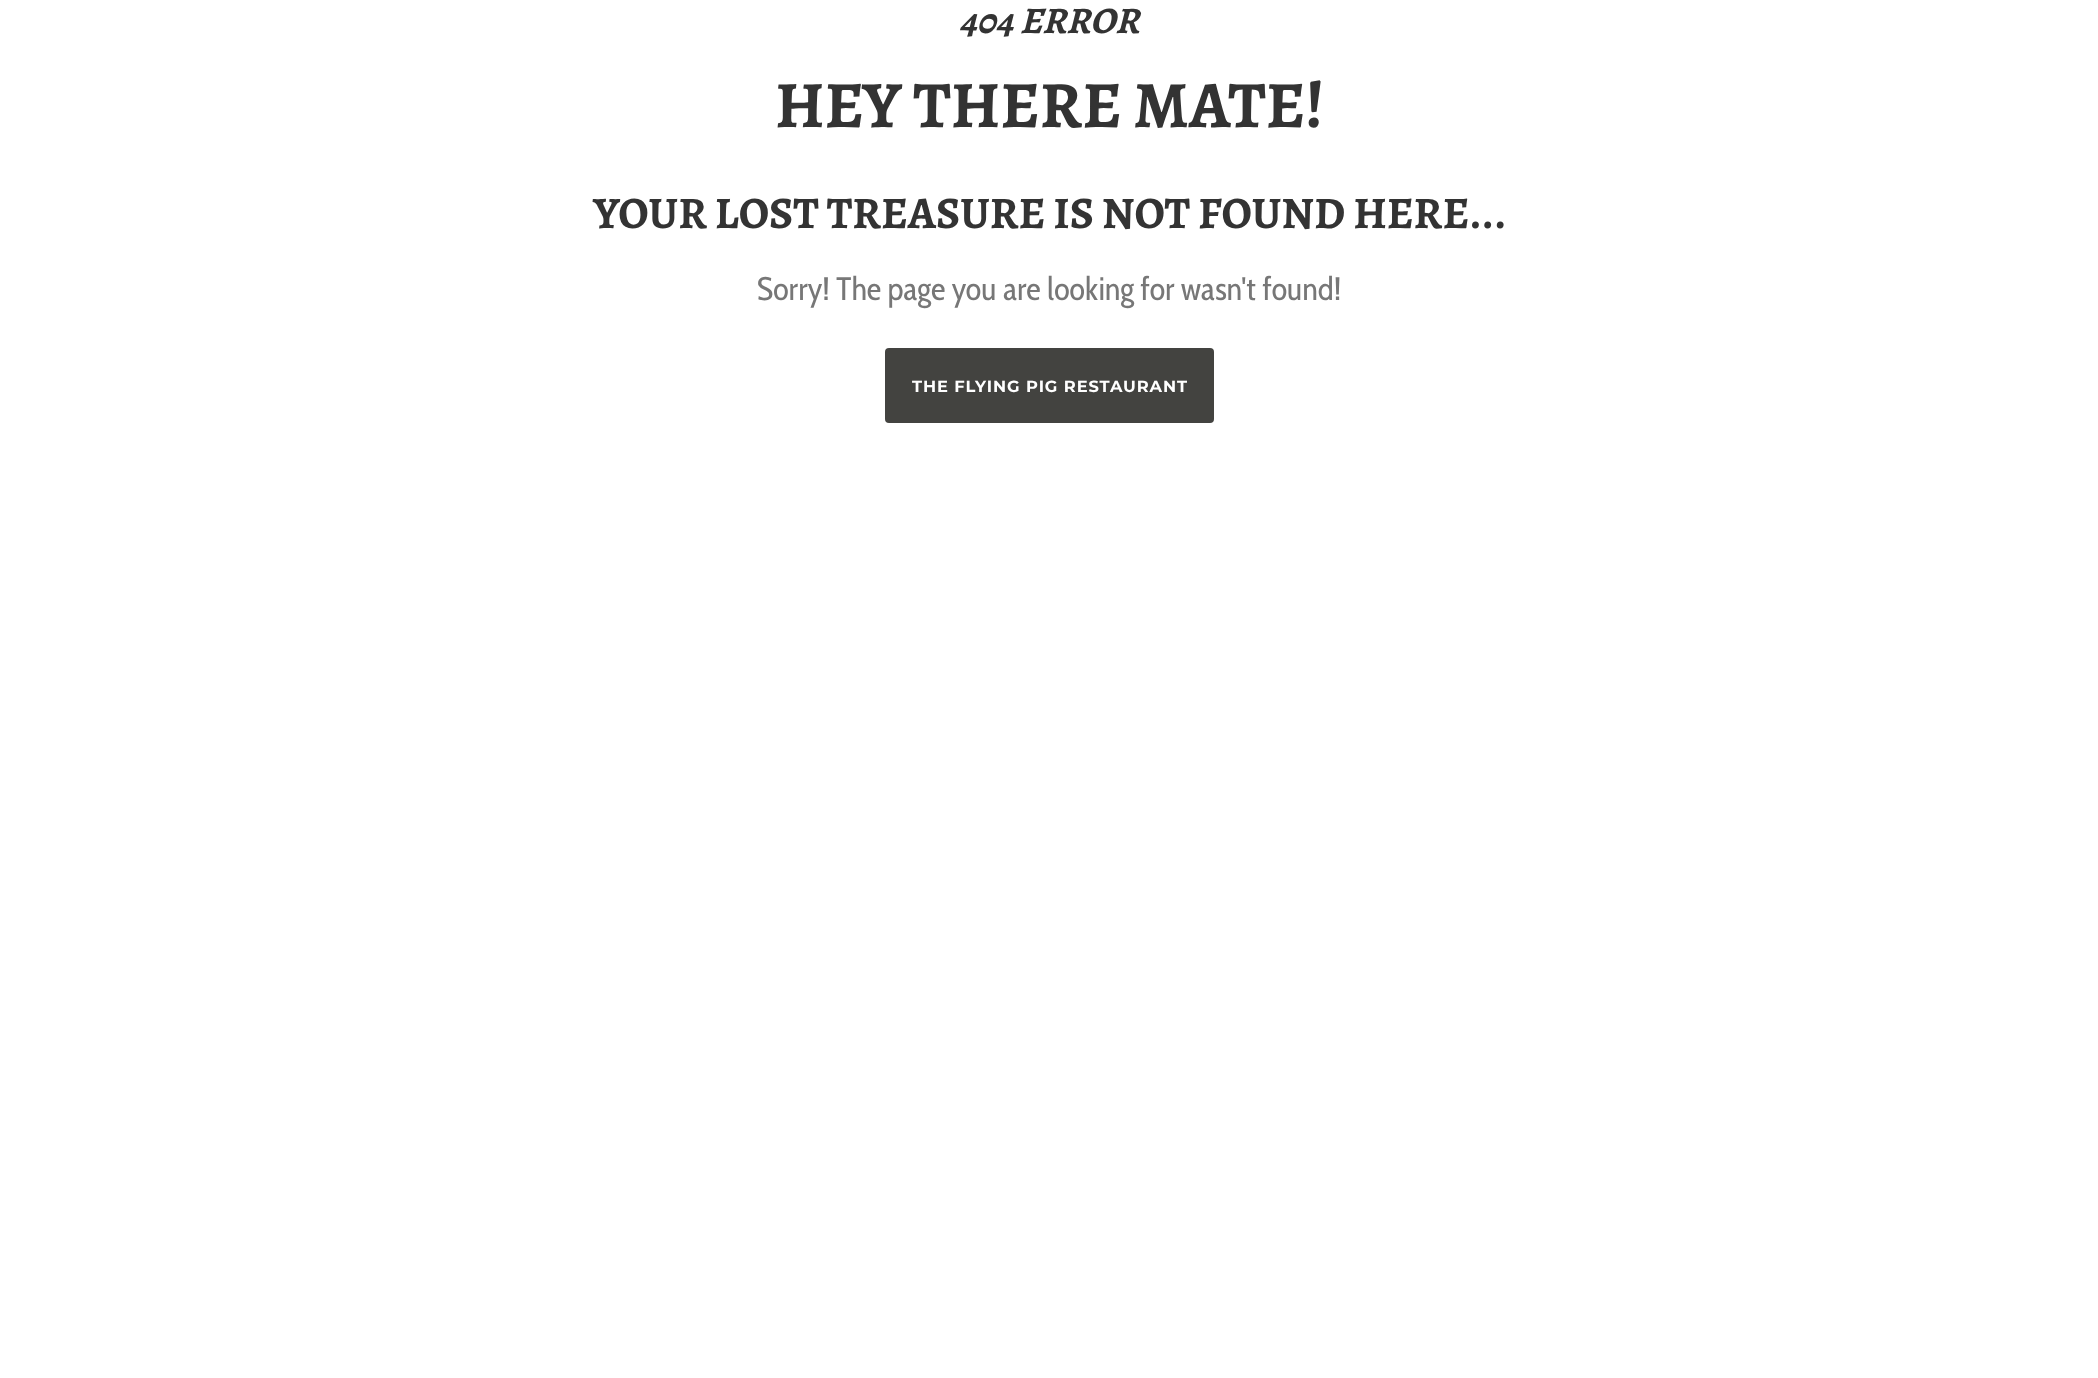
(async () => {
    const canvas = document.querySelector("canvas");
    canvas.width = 2098;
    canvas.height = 1378;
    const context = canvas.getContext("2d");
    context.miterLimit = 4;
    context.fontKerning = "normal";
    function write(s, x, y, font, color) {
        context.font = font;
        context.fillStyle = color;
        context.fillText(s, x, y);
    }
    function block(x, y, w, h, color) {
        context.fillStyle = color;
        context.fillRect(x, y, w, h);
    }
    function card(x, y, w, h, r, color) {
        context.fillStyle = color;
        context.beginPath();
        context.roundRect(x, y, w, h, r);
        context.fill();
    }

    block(0, 0, 2098, 1378, "rgb(255, 255, 255)");
    write("404 ERROR", 959, 33, "italic bold 37.5px Alegreya", "rgb(51, 51, 51)");
    write("HEY THERE MATE!", 775, 127, "bold 66.25px Alegreya", "rgb(51, 51, 51)");
    write("YOUR LOST TREASURE IS NOT FOUND HERE...", 593, 228, "bold 45px Alegreya", "rgb(51, 51, 51)");
    write("Sorry! The page you are looking for wasn't found!", 757, 300, "32.5px Cabin Condensed", "rgb(119, 119, 119)");
    card(885, 348, 329, 75, 4, "rgb(67, 67, 64)");
    context.letterSpacing = "0.9px";
    write("THE FLYING PIG RESTAURANT", 912, 392, "100 16.25px Montserrat", "rgb(255, 255, 255)");
})();
